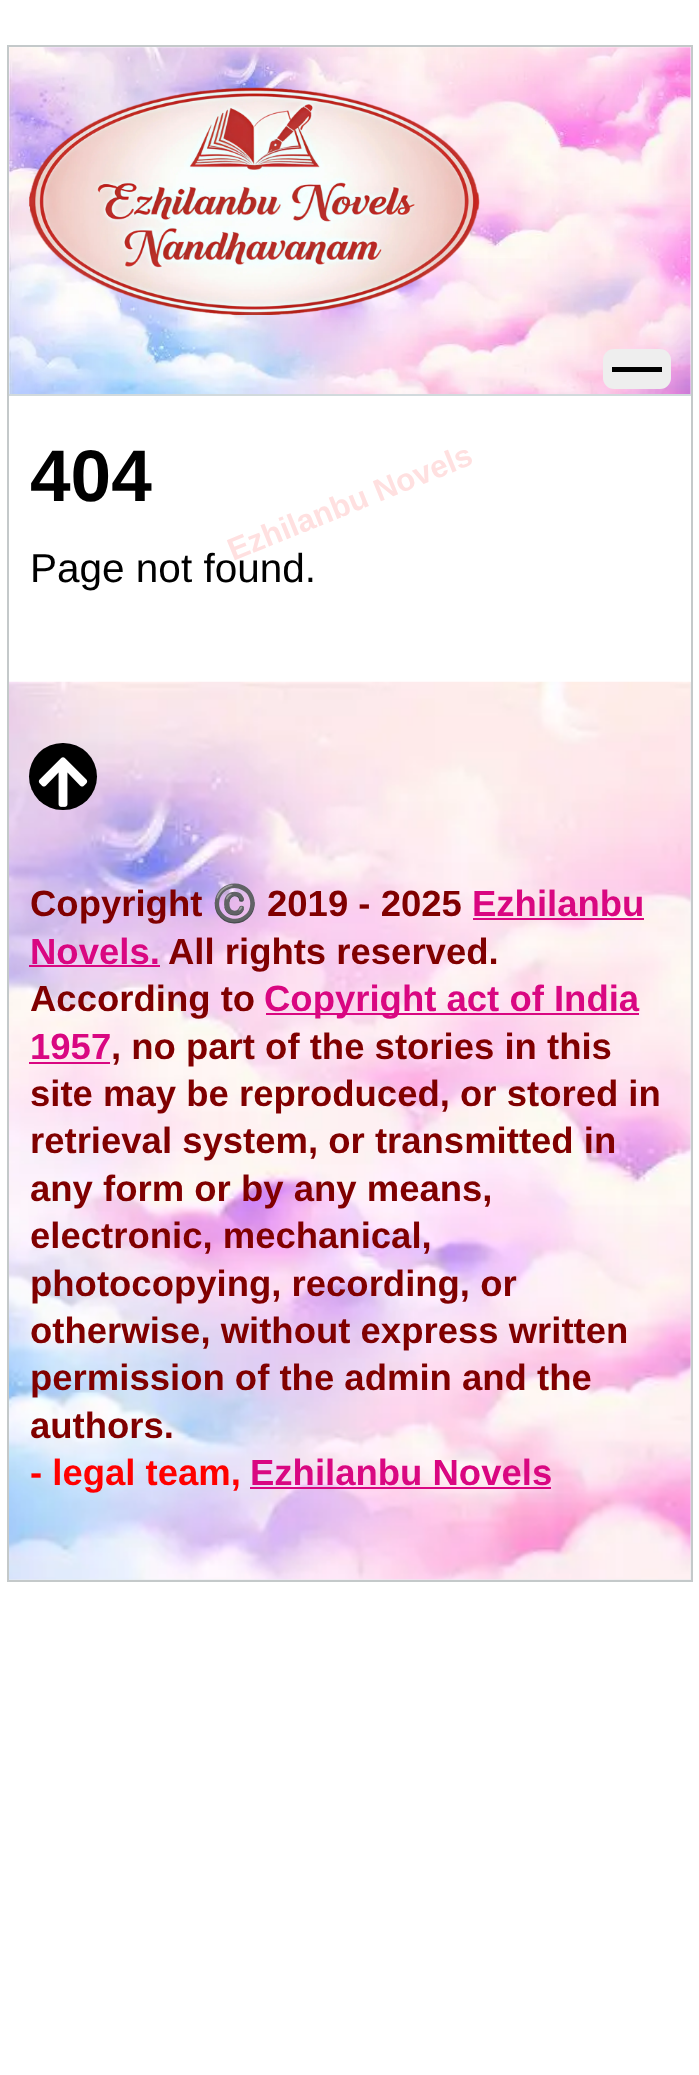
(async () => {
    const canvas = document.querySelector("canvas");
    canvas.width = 699;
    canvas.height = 2075;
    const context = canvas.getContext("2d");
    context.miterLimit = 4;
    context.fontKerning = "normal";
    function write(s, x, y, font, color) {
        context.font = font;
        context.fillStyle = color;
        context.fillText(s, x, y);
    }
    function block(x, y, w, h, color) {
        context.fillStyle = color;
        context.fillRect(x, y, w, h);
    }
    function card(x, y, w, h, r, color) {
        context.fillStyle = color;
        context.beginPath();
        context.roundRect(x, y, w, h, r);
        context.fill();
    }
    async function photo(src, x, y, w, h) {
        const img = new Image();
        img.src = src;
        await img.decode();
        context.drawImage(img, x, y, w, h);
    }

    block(0, 0, 699, 2075, "rgb(255, 255, 255)");
    context.strokeStyle = "rgb(196, 201, 202)";
    context.lineWidth = 2;
    context.strokeRect(8, 46, 684, 1535);
    context.font = "bold 31.5px Liberation Sans";
    context.fillStyle = "rgb(255, 224, 224)";
    context.save();
    context.translate(233, 561);
    context.rotate(-22 * Math.PI / 180);
    context.fillText("Ezhilanbu Novels", 0, 0);
    context.restore();
    await photo("media/1.png", 9, 47, 682, 347);
    block(9, 394, 682, 2, "rgb(210, 218, 221)");
    await photo("media/2.png", 29, 87, 451, 228);
    card(603, 349, 68, 40, 11, "rgb(238, 238, 238)");
    block(612, 367, 50, 5, "rgb(0, 0, 0)");
    write("404", 30, 501, "bold 73px Liberation Sans", "rgb(0, 0, 0)");
    write("Page not found.", 30, 582, "40.5px Liberation Sans", "rgb(0, 0, 0)");
    block(9, 682, 682, 898, "rgb(232, 238, 240)");
    await photo("media/3.png", 9, 681, 682, 899);
    card(29, 743, 68, 67, 33.5, "rgb(0, 0, 0)");
    await photo("media/4.png", 38, 757, 50, 50);
    write("Copyright", 30, 916, "bold 36.5px Liberation Sans", "rgb(128, 0, 0)");
    write("©️", 212, 916, "bold 36.5px Noto Color Emoji", "rgb(128, 0, 0)");
    write("2019 - 2025", 267, 916, "bold 36.5px Liberation Sans", "rgb(128, 0, 0)");
    write("Ezhilanbu", 472, 916, "bold 36.5px Liberation Sans", "rgb(217, 7, 129)");
    block(473, 918, 171, 2, "rgb(217, 7, 129)");
    write("Novels.", 30, 964, "bold 36.5px Liberation Sans", "rgb(217, 7, 129)");
    block(29, 965, 131, 2, "rgb(217, 7, 129)");
    write("All rights reserved.", 168, 964, "bold 36.5px Liberation Sans", "rgb(128, 0, 0)");
    write("According to", 30, 1011, "bold 36.5px Liberation Sans", "rgb(128, 0, 0)");
    block(266, 1013, 373, 2, "rgb(217, 7, 129)");
    write("Copyright act of India", 264, 1011, "bold 36.5px Liberation Sans", "rgb(217, 7, 129)");
    write("1957", 30, 1059, "bold 36.5px Liberation Sans", "rgb(217, 7, 129)");
    write(", no part of the stories in this", 111, 1059, "bold 36.5px Liberation Sans", "rgb(128, 0, 0)");
    block(29, 1062, 81, 2, "rgb(217, 7, 129)");
    write("site may be reproduced, or stored in", 30, 1106, "bold 36.5px Liberation Sans", "rgb(128, 0, 0)");
    write("retrieval system, or transmitted in", 30, 1153, "bold 36.5px Liberation Sans", "rgb(128, 0, 0)");
    write("any form or by any means,", 30, 1201, "bold 36.5px Liberation Sans", "rgb(128, 0, 0)");
    write("electronic, mechanical,", 30, 1248, "bold 36.5px Liberation Sans", "rgb(128, 0, 0)");
    write("photocopying, recording, or", 30, 1296, "bold 36.5px Liberation Sans", "rgb(128, 0, 0)");
    write("otherwise, without express written", 30, 1343, "bold 36.5px Liberation Sans", "rgb(128, 0, 0)");
    write("permission of the admin and the", 30, 1390, "bold 36.5px Liberation Sans", "rgb(128, 0, 0)");
    write("authors.", 30, 1438, "bold 36.5px Liberation Sans", "rgb(128, 0, 0)");
    write("- legal team,", 30, 1485, "bold 36.5px Liberation Sans", "rgb(255, 0, 0)");
    write("Ezhilanbu Novels", 250, 1485, "bold 36.5px Liberation Sans", "rgb(217, 7, 129)");
    block(250, 1487, 301, 2, "rgb(217, 7, 129)");
})();
